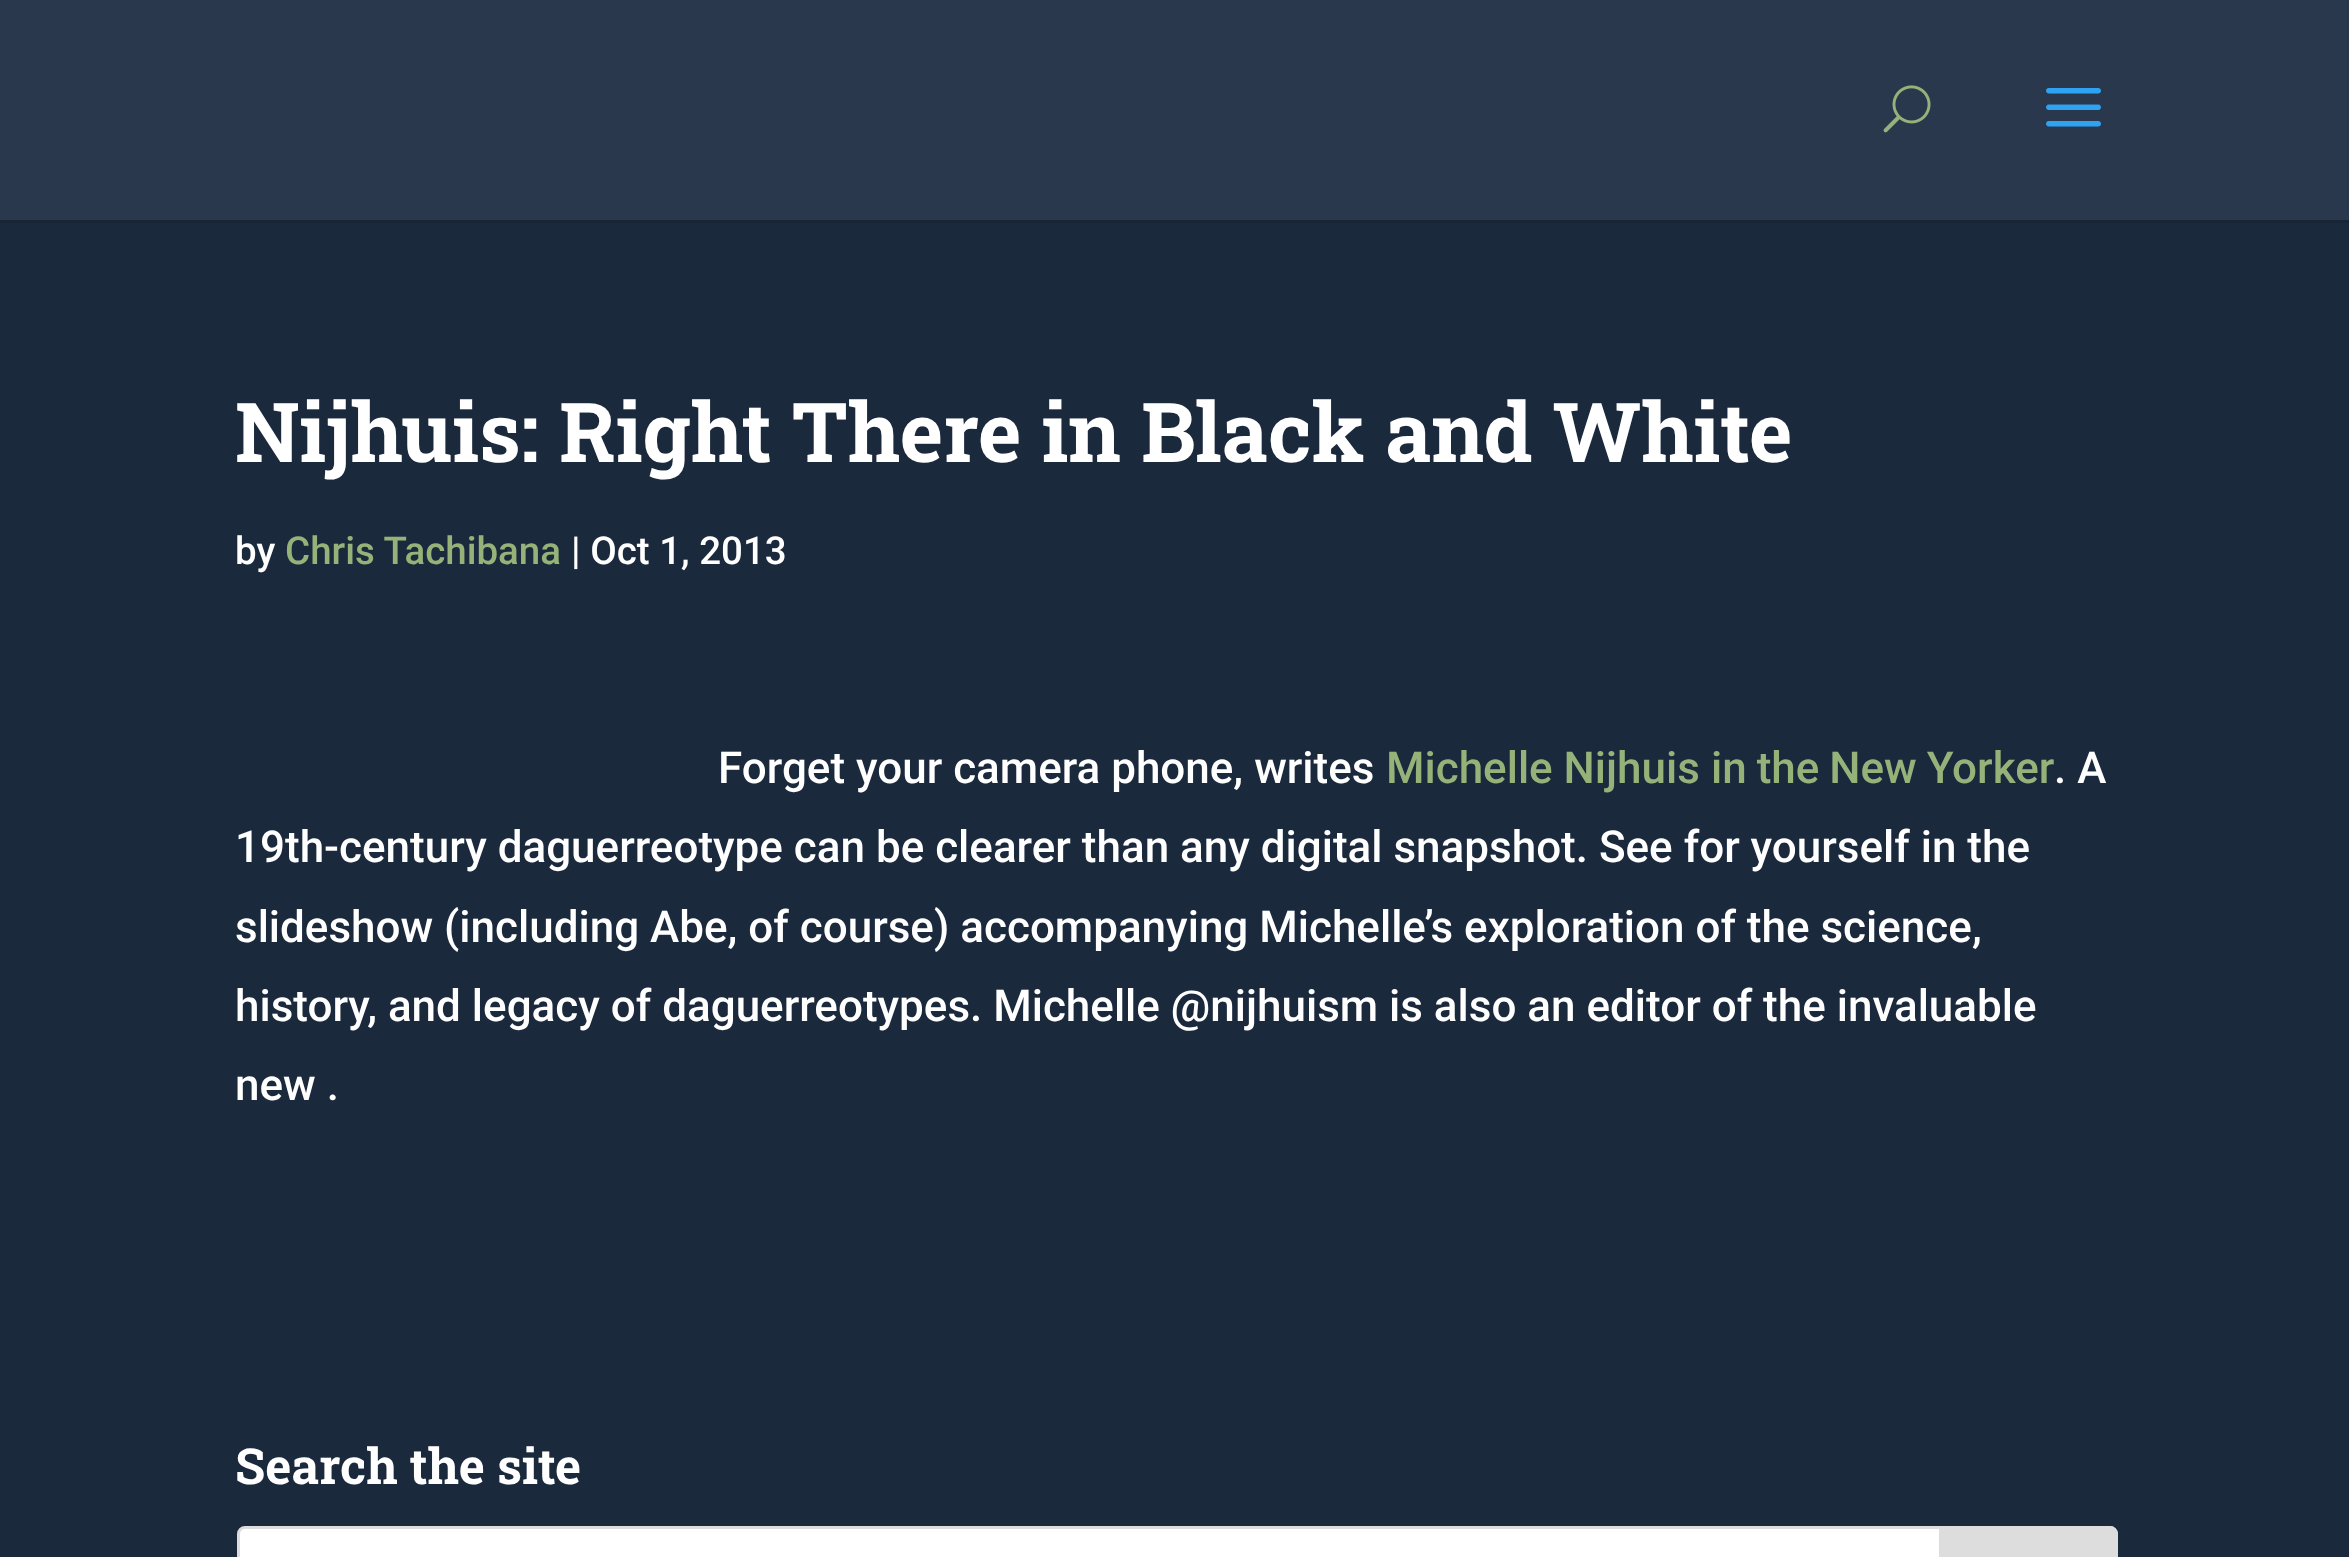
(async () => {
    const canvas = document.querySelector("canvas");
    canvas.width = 2349;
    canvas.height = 1557;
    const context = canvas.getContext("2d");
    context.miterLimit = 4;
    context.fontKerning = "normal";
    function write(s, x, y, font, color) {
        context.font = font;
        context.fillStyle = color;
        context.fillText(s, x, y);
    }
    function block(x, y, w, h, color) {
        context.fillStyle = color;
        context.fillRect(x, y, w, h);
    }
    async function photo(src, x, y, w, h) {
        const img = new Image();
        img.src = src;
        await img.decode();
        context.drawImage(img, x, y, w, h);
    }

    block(0, 0, 2349, 1557, "rgb(27, 41, 61)");
    block(0, 220, 2349, 3, "rgb(24, 37, 55)");
    block(0, 0, 2349, 220, "rgb(42, 56, 78)");
    await photo("media/1.png", 1883, 85, 48, 48);
    await photo("media/2.png", 2046, 88, 55, 39);
    write("Nijhuis: Right There in Black and White", 235, 462, "bold 82.5px Roboto Slab", "rgb(255, 255, 255)");
    write("by", 235, 564, "500 38.5px Roboto", "rgb(255, 255, 255)");
    write("Chris Tachibana", 285, 564, "500 38.5px Roboto", "rgb(149, 179, 121)");
    write("| Oct 1, 2013", 571, 564, "500 38.5px Roboto", "rgb(255, 255, 255)");
    write("Forget your camera phone, writes", 718, 783, "500 44px Roboto", "rgb(255, 255, 255)");
    write("Michelle Nijhuis", 1386, 783, "500 44px Roboto", "rgb(149, 179, 121)");
    context.wordSpacing = "-1px";
    write("in the New Yorker", 1711, 783, "500 44px Roboto", "rgb(149, 179, 121)");
    context.wordSpacing = "0px";
    write(". A", 2054, 783, "500 44px Roboto", "rgb(255, 255, 255)");
    write("19th-century daguerreotype can be clearer than any digital snapshot. See for yourself in the", 235, 862, "500 44px Roboto", "rgb(255, 255, 255)");
    write("slideshow (including Abe, of course) accompanying Michelle’s exploration of the science,", 235, 942, "500 44px Roboto", "rgb(255, 255, 255)");
    write("history, and legacy of daguerreotypes. Michelle @nijhuism is also an editor of the invaluable", 235, 1021, "500 44px Roboto", "rgb(255, 255, 255)");
    write("new .", 235, 1100, "500 44px Roboto", "rgb(255, 255, 255)");
    write("Search the site", 235, 1484, "bold 49.5px Roboto Slab", "rgb(255, 255, 255)");
    context.beginPath();
    context.roundRect(238.5, 1527.5, 1878, 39, 6.5);
    context.fill();
    context.strokeStyle = "rgb(221, 221, 221)";
    context.lineWidth = 3;
    context.stroke();
    context.fillStyle = "rgb(221, 221, 221)";
    context.beginPath();
    context.moveTo(1940.5, 1527.5);
    context.lineTo(2110, 1527.5);
    context.bezierCurveTo(2113.5, 1527.5, 2116.5, 1530.5, 2116.5, 1534);
    context.lineTo(2116.5, 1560);
    context.bezierCurveTo(2116.5, 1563.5, 2113.5, 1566.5, 2110, 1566.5);
    context.lineTo(1940.5, 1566.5);
    context.closePath();
    context.fill();
    context.stroke();
})();
